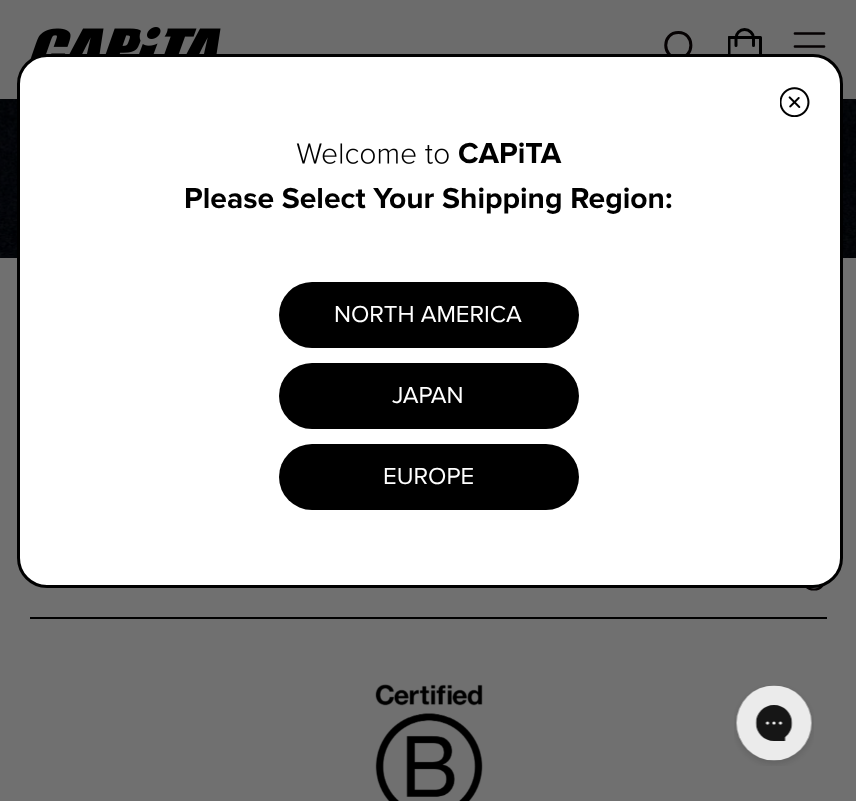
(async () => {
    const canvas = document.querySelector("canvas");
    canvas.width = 856;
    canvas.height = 801;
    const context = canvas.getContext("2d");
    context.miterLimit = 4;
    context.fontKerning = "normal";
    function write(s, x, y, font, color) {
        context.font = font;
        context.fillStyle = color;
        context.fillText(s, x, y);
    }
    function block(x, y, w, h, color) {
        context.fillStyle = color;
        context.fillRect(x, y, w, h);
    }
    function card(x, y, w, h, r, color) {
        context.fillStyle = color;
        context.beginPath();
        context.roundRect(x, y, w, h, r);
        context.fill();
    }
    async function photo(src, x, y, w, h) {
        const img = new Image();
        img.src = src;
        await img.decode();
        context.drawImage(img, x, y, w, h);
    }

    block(0, 0, 856, 801, "rgb(112, 112, 112)");
    await photo("media/1.png", 0, 0, 856, 258);
    block(0, 0, 856, 99, "rgba(112, 112, 112, 0.96)");
    await photo("media/2.png", 30, 27, 191, 33);
    context.beginPath();
    context.moveTo(678.5, 58);
    context.bezierCurveTo(695, 58, 695, 32.5, 678.5, 32.5);
    context.bezierCurveTo(661.5, 32.5, 661.5, 58, 678.5, 58);
    context.closePath();
    context.moveTo(687.5, 54.5);
    context.lineTo(696.5, 63.5);
    context.strokeStyle = "rgb(5, 1, 2)";
    context.lineWidth = 3;
    context.lineCap = "round";
    context.lineJoin = "round";
    context.stroke();
    context.save();
    context.beginPath();
    context.rect(728, 27, 34, 36);
    context.clip();
    context.beginPath();
    context.moveTo(760.5, 37.5);
    context.lineTo(729, 37.5);
    context.lineTo(729, 61);
    context.lineTo(760.5, 61);
    context.closePath();
    context.strokeStyle = "rgb(0, 0, 0)";
    context.stroke();
    context.restore();
    context.beginPath();
    context.moveTo(736, 45.5);
    context.lineTo(736, 38);
    context.bezierCurveTo(736, 33.5, 740, 29.5, 744.5, 29.5);
    context.bezierCurveTo(749.5, 29.5, 753.5, 33.5, 753.5, 38);
    context.lineTo(753.5, 45.5);
    context.strokeStyle = "rgb(0, 0, 0)";
    context.stroke();
    context.beginPath();
    context.moveTo(795, 33.5);
    context.lineTo(824, 33.5);
    context.moveTo(795, 46.5);
    context.lineTo(824, 46.5);
    context.strokeStyle = "rgb(5, 1, 2)";
    context.lineWidth = 2.7;
    context.stroke();
    context.beginPath();
    context.moveTo(814, 589.5);
    context.bezierCurveTo(828.5, 589.5, 828.5, 567, 814, 567);
    context.bezierCurveTo(799, 567, 799, 589.5, 814, 589.5);
    context.closePath();
    context.lineWidth = 2.2;
    context.lineCap = "butt";
    context.lineJoin = "miter";
    context.stroke();
    context.fillStyle = "rgb(255, 255, 255)";
    context.beginPath();
    context.roundRect(18.5, 55.5, 823, 531, 28.5);
    context.fill();
    context.strokeStyle = "rgb(0, 0, 0)";
    context.lineWidth = 3;
    context.stroke();
    await photo("media/3.png", 780, 87, 30, 30);
    await photo("media/4.png", 296, 143, 153, 21);
    write("CAPiTA", 458, 163, "bold 30px Proxima Nova", "rgb(0, 0, 0)");
    write("Please Select Your Shipping Region:", 184, 208, "bold 30px Proxima Nova", "rgb(0, 0, 0)");
    card(279, 282, 300, 66, 33, "rgb(0, 0, 0)");
    write("NORTH AMERICA", 334, 322, "24px Proxima Nova", "rgb(255, 255, 255)");
    card(279, 363, 300, 66, 33, "rgb(0, 0, 0)");
    write("JAPAN", 392, 403, "24px Proxima Nova", "rgb(255, 255, 255)");
    card(279, 444, 300, 66, 33, "rgb(0, 0, 0)");
    write("EUROPE", 383, 484, "24px Proxima Nova", "rgb(255, 255, 255)");
    block(30, 617, 797, 2, "rgb(0, 0, 0)");
    await photo("media/5.png", 375, 684, 108, 117);
    await photo("media/6.png", 734, 685, 80, 81);
})();
